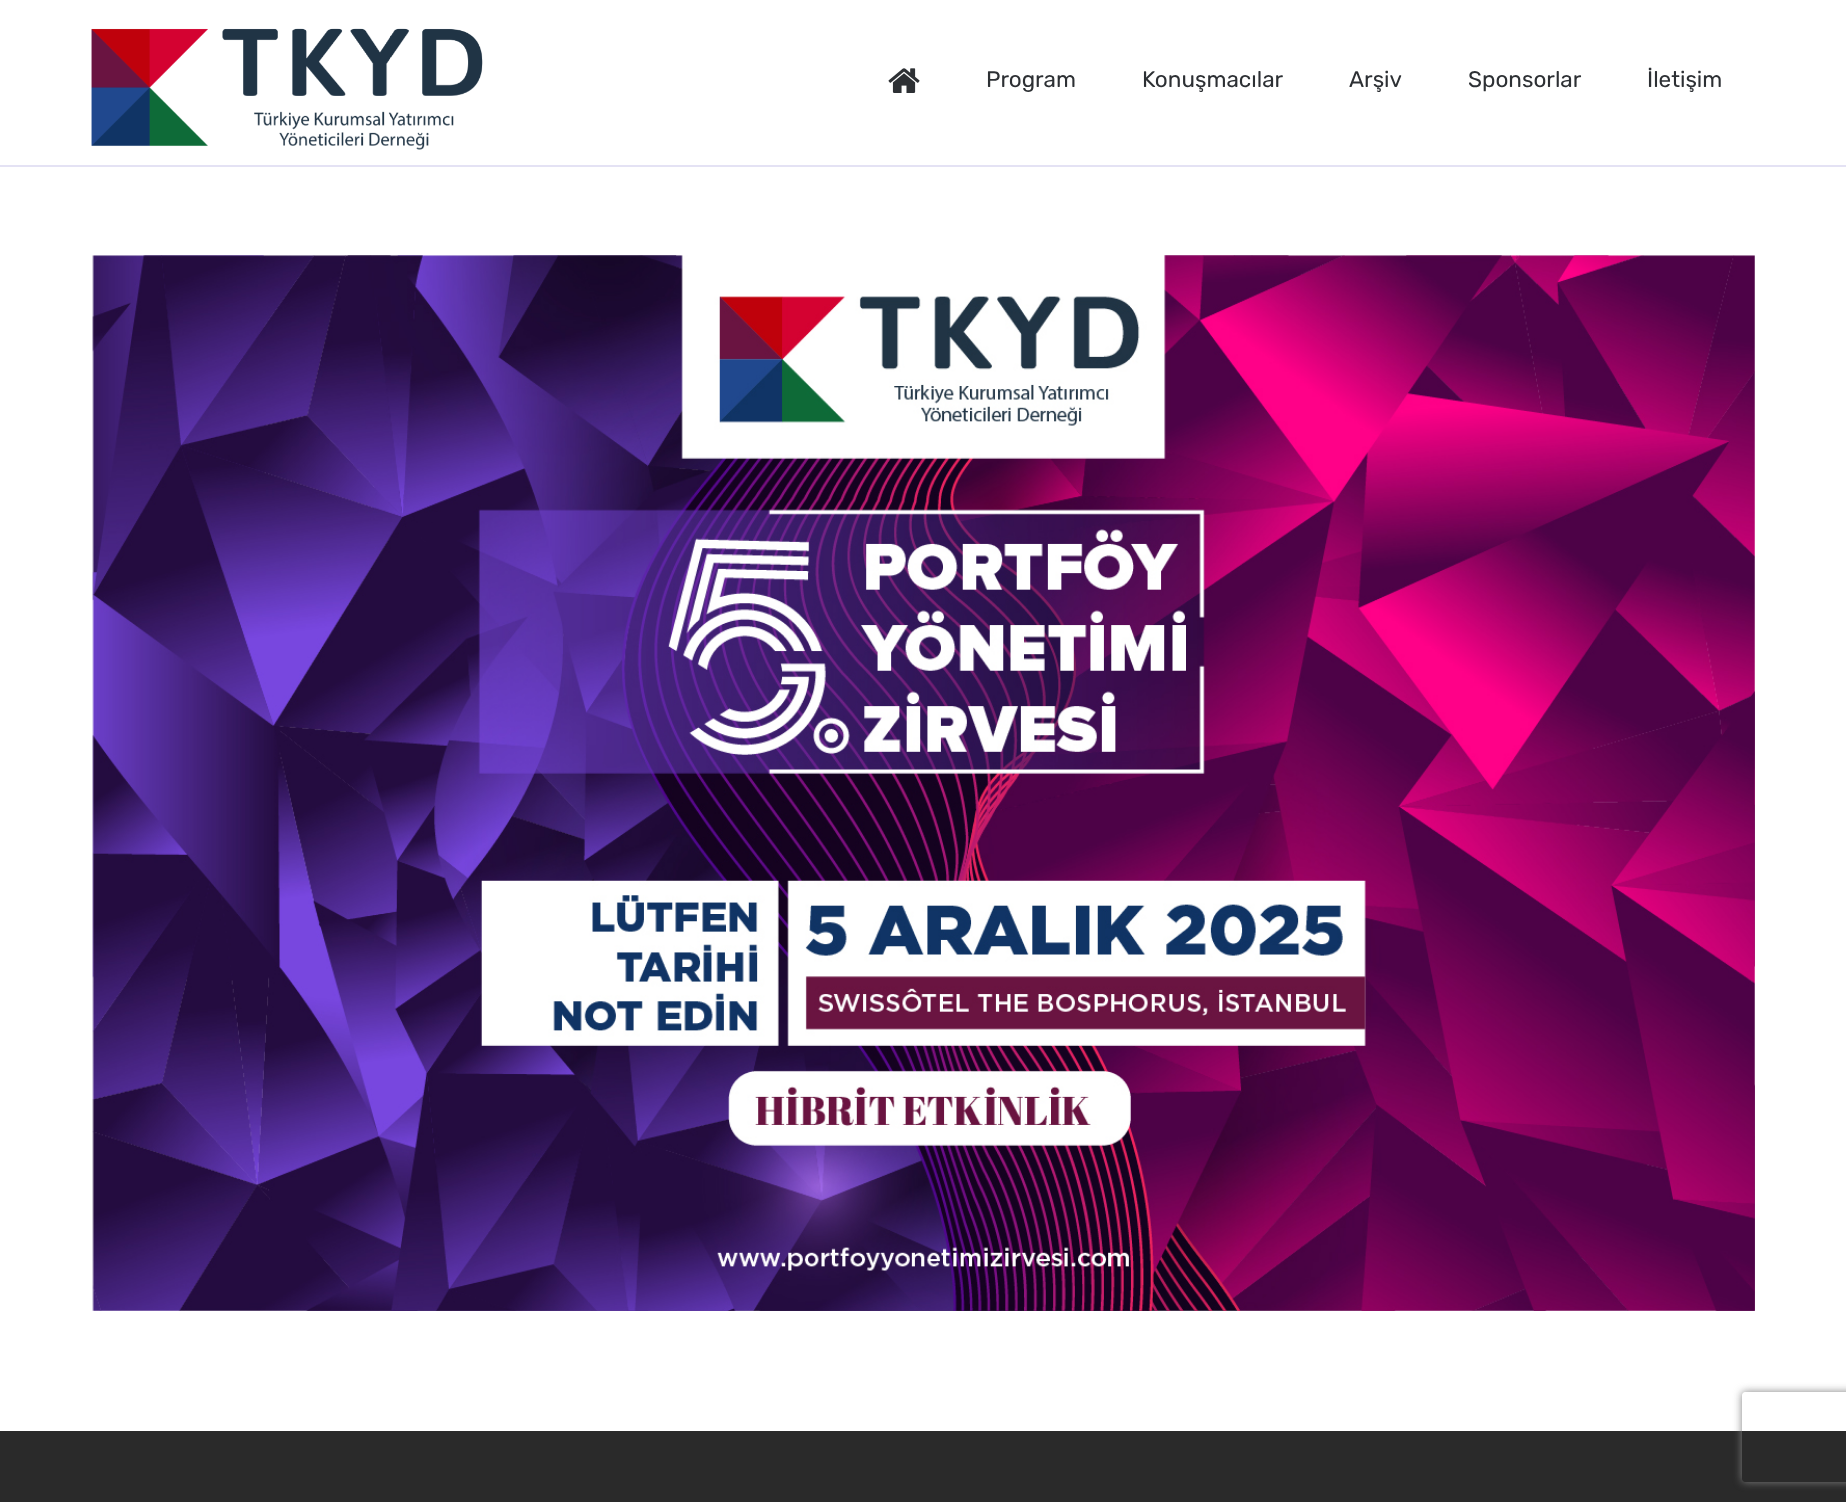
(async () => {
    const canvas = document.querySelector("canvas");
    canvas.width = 1846;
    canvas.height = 1502;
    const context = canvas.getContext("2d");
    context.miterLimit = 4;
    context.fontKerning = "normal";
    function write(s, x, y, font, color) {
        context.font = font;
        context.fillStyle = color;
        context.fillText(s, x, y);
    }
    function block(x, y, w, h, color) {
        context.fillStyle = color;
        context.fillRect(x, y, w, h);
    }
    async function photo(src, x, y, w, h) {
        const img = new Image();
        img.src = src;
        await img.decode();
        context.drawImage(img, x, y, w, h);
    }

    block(0, 0, 1846, 1502, "rgb(255, 255, 255)");
    block(0, 165, 1846, 2, "rgb(228, 226, 244)");
    await photo("media/1.png", 91, 28, 392, 122);
    await photo("media/2.png", 888, 68, 32, 25);
    write("Program", 986, 87, "22.5px Rubik", "rgb(45, 48, 52)");
    write("Konuşmacılar", 1142, 87, "22.5px Rubik", "rgb(45, 48, 52)");
    write("Arşiv", 1349, 87, "22.5px Rubik", "rgb(45, 48, 52)");
    write("Sponsorlar", 1468, 87, "22.5px Rubik", "rgb(45, 48, 52)");
    write("İletişim", 1647, 87, "22.5px Rubik", "rgb(45, 48, 52)");
    await photo("media/3.png", 92, 255, 1663, 1056);
    block(0, 1431, 1846, 71, "rgb(42, 42, 42)");
    context.save();
    context.beginPath();
    context.moveTo(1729, 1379);
    context.lineTo(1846, 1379);
    context.lineTo(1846, 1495);
    context.lineTo(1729, 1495);
    context.closePath();
    context.moveTo(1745, 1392);
    context.lineTo(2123, 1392);
    context.bezierCurveTo(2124.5, 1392, 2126, 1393.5, 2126, 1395);
    context.lineTo(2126, 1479);
    context.bezierCurveTo(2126, 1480.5, 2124.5, 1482, 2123, 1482);
    context.lineTo(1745, 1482);
    context.bezierCurveTo(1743.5, 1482, 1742, 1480.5, 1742, 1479);
    context.lineTo(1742, 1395);
    context.bezierCurveTo(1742, 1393.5, 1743.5, 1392, 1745, 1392);
    context.closePath();
    context.clip("evenodd");
    context.fillStyle = "rgb(128, 128, 128)";
    context.filter = "blur(4px)";
    context.beginPath();
    context.roundRect(1742, 1392, 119, 90, 3);
    context.fill();
    context.filter = "none";
    context.restore();
})();
